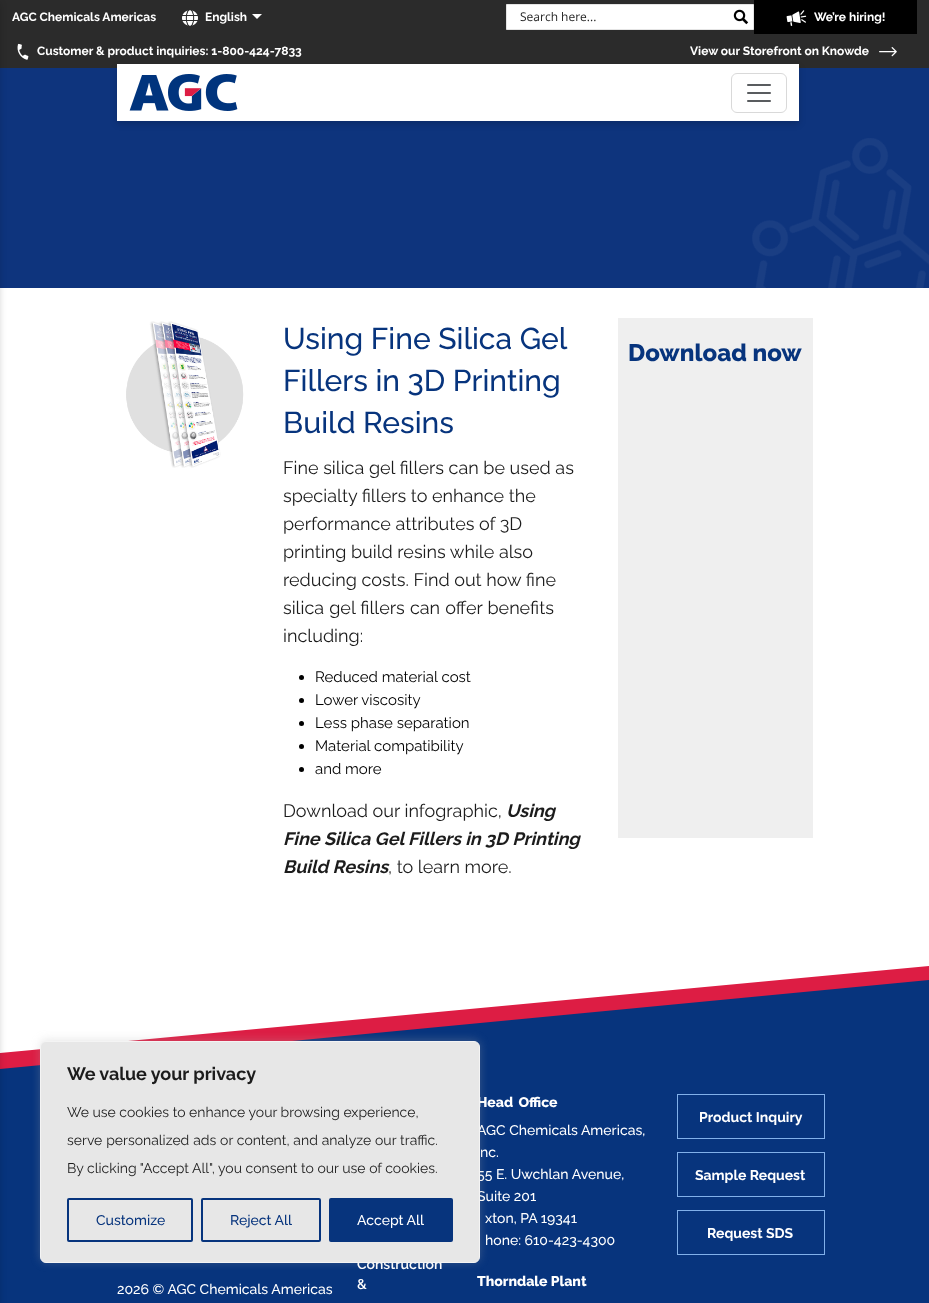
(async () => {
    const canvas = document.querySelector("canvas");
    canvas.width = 929;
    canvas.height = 1303;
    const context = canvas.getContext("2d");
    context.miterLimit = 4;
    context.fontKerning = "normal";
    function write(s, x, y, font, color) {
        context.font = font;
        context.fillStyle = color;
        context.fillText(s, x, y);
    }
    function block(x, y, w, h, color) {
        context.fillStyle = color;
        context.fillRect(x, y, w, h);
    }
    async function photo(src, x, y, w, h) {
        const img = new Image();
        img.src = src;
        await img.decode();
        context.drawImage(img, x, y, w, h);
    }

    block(0, 0, 929, 1303, "rgb(255, 255, 255)");
    block(0, 0, 929, 68, "rgb(43, 43, 43)");
    block(0, 68, 929, 220, "rgb(14, 52, 125)");
    context.fillStyle = "rgb(221, 29, 68)";
    context.beginPath();
    context.moveTo(0, 1053);
    context.lineTo(0, 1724);
    context.lineTo(929, 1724);
    context.lineTo(929, 966);
    context.closePath();
    context.fill();
    context.fillStyle = "rgb(7, 52, 125)";
    context.beginPath();
    context.moveTo(0, 1069);
    context.lineTo(0, 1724);
    context.lineTo(929, 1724);
    context.lineTo(929, 980);
    context.closePath();
    context.fill();
    context.fillStyle = "rgba(0, 0, 0, 0.16)";
    context.filter = "blur(3px)";
    context.beginPath();
    context.rect(-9, 3, 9, 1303);
    context.fill();
    context.filter = "none";
    write("AGC Chemicals Americas", 12, 21, "bold 12px Raleway", "rgb(255, 255, 255)");
    await photo("media/1.png", 182, 10, 16, 16);
    write("English", 205, 21, "bold 12px Raleway", "rgb(255, 255, 255)");
    context.beginPath();
    context.moveTo(252, 14);
    context.lineTo(262, 14);
    context.lineTo(257, 19);
    context.closePath();
    context.fill();
    await photo("media/2.png", 17, 43, 12, 17);
    write("Customer & product inquiries: 1-800-424-7833", 37, 55, "bold 12px Raleway", "rgb(255, 255, 255)");
    context.beginPath();
    context.rect(506.5, 4.5, 247, 25);
    context.fill();
    context.strokeStyle = "rgb(228, 228, 228)";
    context.stroke();
    write("Search here...", 520, 21, "12px Open Sans", "rgb(38, 38, 38)");
    await photo("media/3.png", 733, 9, 16, 16);
    block(754, 0, 163, 34, "rgb(0, 0, 0)");
    await photo("media/4.png", 786, 10, 21, 16);
    write("We’re hiring!", 814, 21, "bold 12px Raleway", "rgb(255, 255, 255)");
    write("View our Storefront on Knowde", 690, 55, "bold 12px Raleway", "rgb(255, 255, 255)");
    await photo("media/5.png", 879, 47, 18, 10);
    context.fillStyle = "rgba(0, 0, 0, 0.16)";
    context.filter = "blur(3px)";
    context.beginPath();
    context.rect(117, 67, 682, 57);
    context.fill();
    context.filter = "none";
    block(117, 64, 682, 57, "rgb(255, 255, 255)");
    await photo("media/6.png", 129, 74, 109, 37);
    context.beginPath();
    context.roundRect(731.5, 73.5, 55, 39, 5.5);
    context.strokeStyle = "rgb(217, 217, 217)";
    context.stroke();
    await photo("media/7.png", 747, 84, 24, 18);
    await photo("media/8.png", 752, 138, 177, 150);
    await photo("media/9.png", 126, 321, 118, 147);
    write("Using Fine Silica Gel", 283, 349, "500 30px Raleway", "rgb(7, 52, 125)");
    write("Fillers in 3D Printing", 283, 391, "500 30px Raleway", "rgb(7, 52, 125)");
    write("Build Resins", 283, 433, "500 30px Raleway", "rgb(7, 52, 125)");
    write("Fine silica gel fillers can be used as", 283, 474, "18px Raleway", "rgb(28, 28, 28)");
    write("specialty fillers to enhance the", 283, 502, "18px Raleway", "rgb(28, 28, 28)");
    write("performance attributes of 3D", 283, 530, "18px Raleway", "rgb(28, 28, 28)");
    write("printing build resins while also", 283, 558, "18px Raleway", "rgb(28, 28, 28)");
    write("reducing costs. Find out how fine", 283, 586, "18px Raleway", "rgb(28, 28, 28)");
    context.wordSpacing = "0.5px";
    write("silica gel fillers can offer benefits", 283, 614, "18px Raleway", "rgb(28, 28, 28)");
    context.wordSpacing = "0px";
    write("including:", 283, 642, "18px Raleway", "rgb(28, 28, 28)");
    context.fillStyle = "rgb(0, 0, 0)";
    context.beginPath();
    context.arc(301.5, 677.5, 2.5, 0, Math.PI * 2);
    context.fill();
    write("Reduced material cost", 315, 682, "15px Raleway", "rgb(0, 0, 0)");
    context.beginPath();
    context.arc(301.5, 700.5, 2.5, 0, Math.PI * 2);
    context.fill();
    write("Lower viscosity", 315, 705, "15px Raleway", "rgb(0, 0, 0)");
    context.beginPath();
    context.arc(301.5, 723.5, 2.5, 0, Math.PI * 2);
    context.fill();
    write("Less phase separation", 315, 728, "15px Raleway", "rgb(0, 0, 0)");
    context.beginPath();
    context.arc(301.5, 746.5, 2.5, 0, Math.PI * 2);
    context.fill();
    write("Material compatibility", 315, 751, "15px Raleway", "rgb(0, 0, 0)");
    context.beginPath();
    context.arc(301.5, 769.5, 2.5, 0, Math.PI * 2);
    context.fill();
    write("and more", 315, 774, "15px Raleway", "rgb(0, 0, 0)");
    write("Download our infographic,", 283, 817, "18px Raleway", "rgb(28, 28, 28)");
    write("Using", 506, 817, "italic bold 18px Raleway", "rgb(28, 28, 28)");
    write("Fine Silica Gel Fillers in 3D Printing", 283, 845, "italic bold 18px Raleway", "rgb(28, 28, 28)");
    write("Build Resins", 283, 873, "italic bold 18px Raleway", "rgb(28, 28, 28)");
    write(", to learn more.", 388, 873, "18px Raleway", "rgb(28, 28, 28)");
    block(618, 318, 195, 520, "rgb(239, 239, 239)");
    write("Download now", 628, 361, "800 24px Raleway", "rgb(7, 52, 125)");
    write("2026 © AGC Chemicals Americas", 117, 1294, "500 14px Raleway", "rgb(255, 255, 255)");
    context.wordSpacing = "2px";
    write("Head Office", 477, 1107, "800 14px Raleway", "rgb(255, 255, 255)");
    context.wordSpacing = "0px";
    write("AGC Chemicals Americas,", 477, 1135, "500 14px Raleway", "rgb(255, 255, 255)");
    write("nc.", 480, 1157, "500 14px Raleway", "rgb(255, 255, 255)");
    write("55 E. Uwchlan Avenue,", 477, 1179, "500 14px Raleway", "rgb(255, 255, 255)");
    write("Suite 201", 477, 1201, "500 14px Raleway", "rgb(255, 255, 255)");
    write("xton, PA 19341", 485, 1223, "500 14px Raleway", "rgb(255, 255, 255)");
    write("hone: 610-423-4300", 485, 1245, "500 14px Raleway", "rgb(255, 255, 255)");
    write("Thorndale Plant", 477, 1286, "800 14px Raleway", "rgb(255, 255, 255)");
    context.strokeStyle = "rgb(129, 176, 234)";
    context.strokeRect(677.5, 1094.5, 147, 44);
    write("Product Inquiry", 699, 1122, "bold 14px Raleway", "rgb(255, 255, 255)");
    context.strokeRect(677.5, 1152.5, 147, 44);
    write("Sample Request", 695, 1180, "bold 14px Raleway", "rgb(255, 255, 255)");
    context.strokeRect(677.5, 1210.5, 147, 44);
    write("Request SDS", 707, 1238, "bold 14px Raleway", "rgb(255, 255, 255)");
    write("Construction", 357, 1269, "600 14px Raleway", "rgb(255, 255, 255)");
    write("&", 357, 1289, "600 14px Raleway", "rgb(255, 255, 255)");
    context.fillStyle = "rgba(172, 171, 171, 0.3)";
    context.filter = "blur(5px)";
    context.beginPath();
    context.roundRect(40, 1040, 440, 222, 6);
    context.fill();
    context.filter = "none";
    context.fillStyle = "rgb(231, 231, 231)";
    context.beginPath();
    context.roundRect(40.5, 1041.5, 439, 221, 5.5);
    context.fill();
    context.strokeStyle = "rgb(244, 244, 244)";
    context.stroke();
    write("We value your privacy", 67, 1080, "bold 18px Raleway", "rgb(28, 28, 28)");
    write("We use cookies to enhance your browsing experience,", 67, 1117, "14px Raleway", "rgb(28, 28, 28)");
    context.wordSpacing = "0.25px";
    write("serve personalized ads or content, and analyze our traffic.", 67, 1145, "14px Raleway", "rgb(28, 28, 28)");
    context.wordSpacing = "0px";
    write("By clicking \"Accept All\", you consent to our use of cookies.", 67, 1173, "14px Raleway", "rgb(28, 28, 28)");
    context.beginPath();
    context.roundRect(68, 1199, 124, 42, 1);
    context.strokeStyle = "rgb(7, 52, 125)";
    context.lineWidth = 2;
    context.stroke();
    write("Customize", 96, 1225, "500 14px Raleway", "rgb(7, 52, 125)");
    context.beginPath();
    context.roundRect(202, 1199, 118, 42, 1);
    context.stroke();
    write("Reject All", 230, 1225, "500 14px Raleway", "rgb(7, 52, 125)");
    context.beginPath();
    context.roundRect(330, 1199, 122, 42, 1);
    context.fill();
    context.stroke();
    write("Accept All", 357, 1225, "500 14px Raleway", "rgb(255, 255, 255)");
})();
